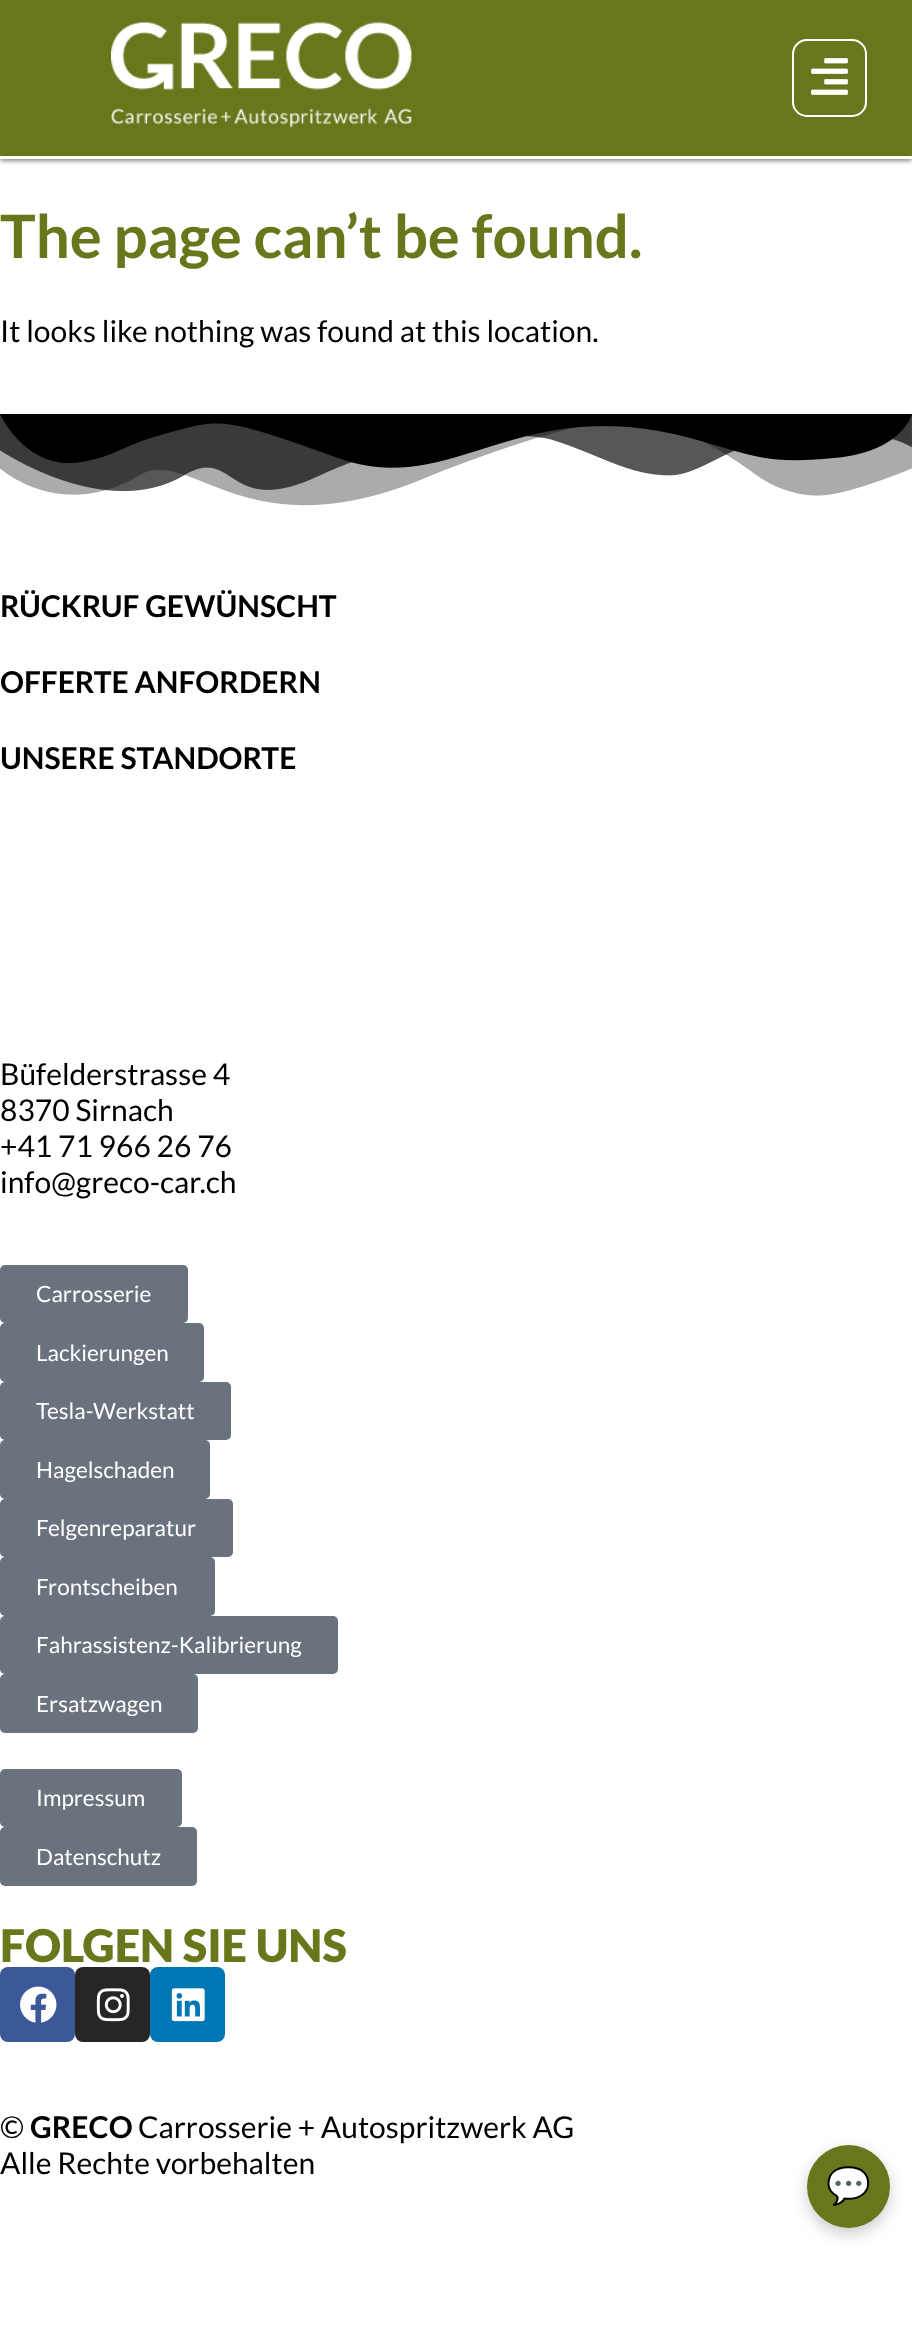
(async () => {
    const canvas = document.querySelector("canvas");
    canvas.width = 912;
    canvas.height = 2339;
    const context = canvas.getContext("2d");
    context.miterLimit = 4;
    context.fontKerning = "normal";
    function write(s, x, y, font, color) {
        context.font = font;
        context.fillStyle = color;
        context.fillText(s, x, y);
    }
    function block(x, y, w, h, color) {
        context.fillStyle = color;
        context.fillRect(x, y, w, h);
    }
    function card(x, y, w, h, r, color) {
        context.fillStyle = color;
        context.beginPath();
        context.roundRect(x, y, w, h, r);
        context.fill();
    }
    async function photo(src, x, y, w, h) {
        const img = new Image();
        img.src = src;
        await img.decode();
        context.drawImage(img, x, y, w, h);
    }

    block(0, 0, 912, 2339, "rgb(255, 255, 255)");
    context.save();
    context.beginPath();
    context.rect(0, 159, 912, 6);
    context.clip();
    context.fillStyle = "rgb(136, 136, 136)";
    context.filter = "blur(2px)";
    context.beginPath();
    context.rect(0, 2, 912, 159);
    context.fill();
    context.filter = "none";
    context.restore();
    block(0, 0, 912, 156, "rgb(105, 119, 28)");
    await photo("media/1.png", 111, 22, 301, 106);
    context.beginPath();
    context.roundRect(793, 40, 73, 76, 14);
    context.strokeStyle = "rgb(255, 255, 255)";
    context.lineWidth = 2;
    context.stroke();
    await photo("media/2.png", 811, 58, 37, 37);
    write("The page can’t be found.", 0, 258, "bold 60px Lato", "rgb(105, 119, 28)");
    write("It looks like nothing was found at this location.", 0, 342, "30px Lato", "rgb(0, 0, 0)");
    await photo("media/3.png", 0, 414, 912, 92);
    write("RÜCKRUF GEWÜNSCHT", 0, 617, "bold 30px Lato", "rgb(0, 0, 0)");
    write("OFFERTE ANFORDERN", 0, 693, "bold 30px Lato", "rgb(0, 0, 0)");
    write("UNSERE STANDORTE", 0, 769, "bold 30px Lato", "rgb(0, 0, 0)");
    write("Büfelderstrasse 4", 0, 1085, "30px Lato", "rgb(0, 0, 0)");
    write("8370 Sirnach", 0, 1121, "30px Lato", "rgb(0, 0, 0)");
    write("+41 71 966 26 76", 0, 1157, "30px Lato", "rgb(0, 0, 0)");
    write("info@greco-car.ch", 0, 1193, "30px Lato", "rgb(0, 0, 0)");
    card(0, 1265, 188, 58, 5, "rgb(105, 114, 125)");
    write("Carrosserie", 36, 1302, "22.5px Lato", "rgb(255, 255, 255)");
    card(0, 1323, 204, 59, 5, "rgb(105, 114, 125)");
    write("Lackierungen", 36, 1361, "22.5px Lato", "rgb(255, 255, 255)");
    card(0, 1382, 231, 58, 5, "rgb(105, 114, 125)");
    write("Tesla-Werkstatt", 36, 1419, "22.5px Lato", "rgb(255, 255, 255)");
    card(0, 1440, 210, 59, 5, "rgb(105, 114, 125)");
    write("Hagelschaden", 36, 1478, "22.5px Lato", "rgb(255, 255, 255)");
    card(0, 1499, 233, 58, 5, "rgb(105, 114, 125)");
    write("Felgenreparatur", 36, 1536, "22.5px Lato", "rgb(255, 255, 255)");
    card(0, 1557, 215, 59, 5, "rgb(105, 114, 125)");
    write("Frontscheiben", 36, 1595, "22.5px Lato", "rgb(255, 255, 255)");
    card(0, 1616, 338, 58, 5, "rgb(105, 114, 125)");
    write("Fahrassistenz-Kalibrierung", 36, 1653, "22.5px Lato", "rgb(255, 255, 255)");
    card(0, 1674, 198, 59, 5, "rgb(105, 114, 125)");
    write("Ersatzwagen", 36, 1712, "22.5px Lato", "rgb(255, 255, 255)");
    card(0, 1769, 182, 58, 5, "rgb(105, 114, 125)");
    write("Impressum", 36, 1806, "22.5px Lato", "rgb(255, 255, 255)");
    card(0, 1827, 197, 59, 5, "rgb(105, 114, 125)");
    write("Datenschutz", 36, 1865, "22.5px Lato", "rgb(255, 255, 255)");
    write("FOLGEN SIE UNS", 0, 1962, "900 45px Lato", "rgb(105, 119, 28)");
    card(0, 1967, 75, 75, 8, "rgb(59, 89, 152)");
    await photo("media/4.png", 20, 1986, 37, 37);
    card(75, 1967, 75, 75, 8, "rgb(38, 38, 38)");
    await photo("media/5.png", 96, 1988, 34, 34);
    card(150, 1967, 75, 75, 8, "rgb(0, 119, 181)");
    await photo("media/6.png", 171, 1988, 34, 34);
    write("©", 0, 2138, "30px Lato", "rgb(0, 0, 0)");
    write("GRECO", 30, 2138, "bold 30px Lato", "rgb(0, 0, 0)");
    write("Carrosserie + Autospritzwerk AG", 138, 2138, "30px Lato", "rgb(0, 0, 0)");
    write("Alle Rechte vorbehalten", 0, 2174, "30px Lato", "rgb(0, 0, 0)");
    context.fillStyle = "rgba(0, 0, 0, 0.2)";
    context.filter = "blur(7.5px)";
    context.beginPath();
    context.roundRect(807, 2151, 83, 83, 41.5);
    context.fill();
    context.filter = "none";
    context.fillStyle = "rgb(105, 119, 28)";
    context.beginPath();
    context.arc(848.5, 2186.5, 41.5, 0, Math.PI * 2);
    context.fill();
    write("💬", 826, 2198, "36px Noto Color Emoji", "rgb(255, 255, 255)");
})();
